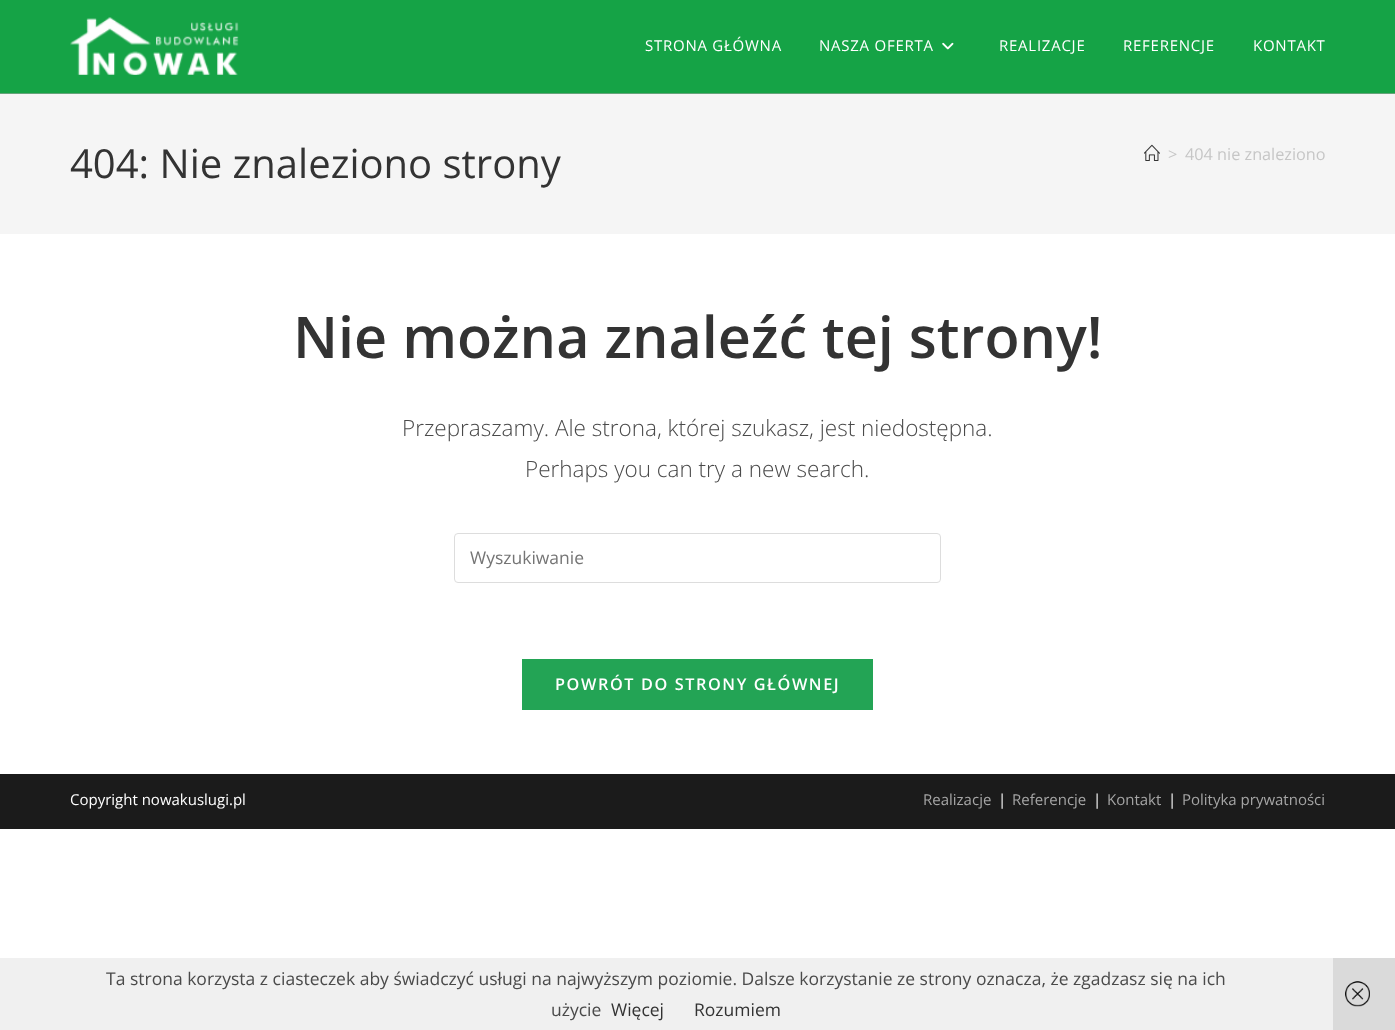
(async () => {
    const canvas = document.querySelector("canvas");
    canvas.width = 1395;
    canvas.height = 1030;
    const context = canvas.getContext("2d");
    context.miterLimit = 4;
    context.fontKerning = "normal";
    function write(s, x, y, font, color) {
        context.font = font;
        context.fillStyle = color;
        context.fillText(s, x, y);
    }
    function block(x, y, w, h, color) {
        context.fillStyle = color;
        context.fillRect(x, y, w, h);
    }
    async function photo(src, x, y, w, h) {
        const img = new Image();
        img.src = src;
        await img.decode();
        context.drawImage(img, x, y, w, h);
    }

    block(0, 0, 1395, 1030, "rgb(255, 255, 255)");
    block(0, 0, 1395, 93, "rgb(21, 163, 70)");
    block(0, 93, 1395, 1, "rgb(102, 163, 122)");
    await photo("media/1.png", 70, 17, 169, 58);
    context.letterSpacing = "0.75px";
    write("STRONA GŁÓWNA", 645, 51, "15px Open Sans", "rgb(255, 255, 255)");
    write("NASZA OFERTA", 819, 51, "15px Open Sans", "rgb(255, 255, 255)");
    await photo("media/2.png", 942, 42, 12, 8);
    write("REALIZACJE", 999, 51, "15px Open Sans", "rgb(255, 255, 255)");
    write("REFERENCJE", 1123, 51, "15px Open Sans", "rgb(255, 255, 255)");
    write("KONTAKT", 1253, 51, "15px Open Sans", "rgb(255, 255, 255)");
    block(0, 94, 1395, 140, "rgb(245, 245, 245)");
    context.letterSpacing = "0px";
    write("404: Nie znaleziono strony", 70, 178, "40px Open Sans", "rgb(51, 51, 51)");
    await photo("media/3.png", 1144, 144, 16, 17);
    write(">", 1168, 160, "16.25px Open Sans", "rgb(198, 198, 198)");
    write("404 nie znaleziono", 1185, 160, "16.25px Open Sans", "rgb(198, 198, 198)");
    write("Nie można znaleźć tej strony!", 293, 358, "600 57.5px Open Sans", "rgb(51, 51, 51)");
    write("Przepraszamy. Ale strona, której szukasz, jest niedostępna.", 402, 436, "300 22.5px Open Sans", "rgb(74, 74, 74)");
    write("Perhaps you can try a new search.", 525, 477, "300 22.5px Open Sans", "rgb(74, 74, 74)");
    context.beginPath();
    context.roundRect(454.5, 533.5, 486, 49, 3.5);
    context.strokeStyle = "rgb(221, 221, 221)";
    context.stroke();
    write("Wyszukiwanie", 470, 564, "17.5px Open Sans", "rgb(117, 117, 117)");
    block(522, 659, 351, 51, "rgb(35, 164, 85)");
    context.letterSpacing = "1.6px";
    write("POWRÓT DO STRONY GŁÓWNEJ", 555, 690, "600 16.25px Open Sans", "rgb(255, 255, 255)");
    block(0, 774, 1395, 55, "rgb(27, 27, 27)");
    context.letterSpacing = "0px";
    write("Copyright nowakuslugi.pl", 70, 805, "15px Open Sans", "rgb(255, 255, 255)");
    write("Realizacje", 923, 805, "15px Open Sans", "rgb(165, 165, 165)");
    write("|", 998, 805, "15px Open Sans", "rgb(255, 255, 255)");
    write("Referencje", 1012, 805, "15px Open Sans", "rgb(165, 165, 165)");
    write("|", 1093, 805, "15px Open Sans", "rgb(255, 255, 255)");
    write("Kontakt", 1107, 805, "15px Open Sans", "rgb(165, 165, 165)");
    write("|", 1168, 805, "15px Open Sans", "rgb(255, 255, 255)");
    write("Polityka prywatności", 1182, 805, "15px Open Sans", "rgb(165, 165, 165)");
    block(0, 958, 1333, 72, "rgb(240, 240, 240)");
    write("Ta strona korzysta z ciasteczek aby świadczyć usługi na najwyższym poziomie. Dalsze korzystanie ze strony oznacza, że zgadzasz się na ich", 106, 985, "17.5px Open Sans", "rgb(74, 74, 74)");
    write("użycie", 551, 1016, "17.5px Open Sans", "rgb(74, 74, 74)");
    write("Więcej", 611, 1016, "17.5px Open Sans", "rgb(51, 51, 51)");
    write("Rozumiem", 694, 1016, "17.5px Open Sans", "rgb(51, 51, 51)");
    block(1333, 958, 62, 72, "rgb(218, 218, 218)");
    await photo("media/4.png", 1345, 981, 25, 26);
})();
